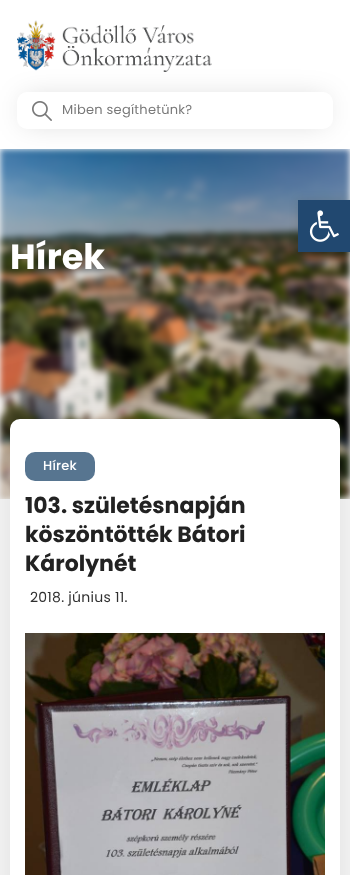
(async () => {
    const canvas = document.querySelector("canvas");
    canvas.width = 350;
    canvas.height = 875;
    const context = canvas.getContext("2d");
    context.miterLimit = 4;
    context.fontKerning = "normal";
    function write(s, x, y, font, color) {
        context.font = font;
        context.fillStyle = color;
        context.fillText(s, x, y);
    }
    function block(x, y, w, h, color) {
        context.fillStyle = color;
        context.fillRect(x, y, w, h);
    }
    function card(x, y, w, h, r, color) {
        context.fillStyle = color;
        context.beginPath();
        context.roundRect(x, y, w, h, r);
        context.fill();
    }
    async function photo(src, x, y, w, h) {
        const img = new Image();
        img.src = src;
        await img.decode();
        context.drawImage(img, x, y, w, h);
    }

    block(0, 0, 350, 875, "rgb(255, 255, 255)");
    await photo("media/1.png", 17, 20, 195, 52);
    await photo("media/3.png", 0, 149, 350, 350);
    context.fillStyle = "rgba(0, 0, 0, 0.18)";
    context.filter = "blur(14.5px)";
    context.beginPath();
    context.roundRect(24, 99, 302, 23, 3);
    context.fill();
    context.filter = "none";
    card(17, 92, 316, 37, 10, "rgb(255, 255, 255)");
    await photo("media/2.png", 32, 101, 20, 20);
    context.letterSpacing = "0.25px";
    write("Miben segíthetünk?", 62, 114, "13px Poppins", "rgb(121, 121, 121)");
    context.letterSpacing = "0px";
    write("Hírek", 10, 269, "bold 35px Poppins", "rgb(255, 255, 255)");
    context.fillStyle = "rgba(0, 0, 0, 0.2)";
    context.filter = "blur(33.5px)";
    context.beginPath();
    context.roundRect(17, 426, 316, 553, 3);
    context.fill();
    context.filter = "none";
    card(10, 419, 330, 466, 10, "rgb(255, 255, 255)");
    card(25, 452, 70, 29, 10, "rgb(87, 117, 144)");
    context.letterSpacing = "0.25px";
    write("Hírek", 43, 470, "500 13px Poppins", "rgb(255, 255, 255)");
    context.letterSpacing = "0px";
    write("103. születésnapján", 25, 513, "bold 22px Poppins", "rgb(34, 34, 34)");
    write("köszöntötték Bátori", 25, 542, "bold 22px Poppins", "rgb(34, 34, 34)");
    write("Károlynét", 25, 571, "bold 22px Poppins", "rgb(34, 34, 34)");
    context.letterSpacing = "0.25px";
    write("2018. június 11.", 30, 602, "14px Poppins", "rgb(48, 48, 48)");
    await photo("media/4.png", 25, 633, 300, 242);
    context.fillStyle = "rgba(0, 0, 0, 0.1)";
    context.filter = "blur(5px)";
    context.beginPath();
    context.rect(298, 200, 52, 52);
    context.fill();
    context.filter = "none";
    block(298, 200, 52, 52, "rgb(33, 72, 112)");
    await photo("media/5.png", 309, 210, 30, 32);
})();
